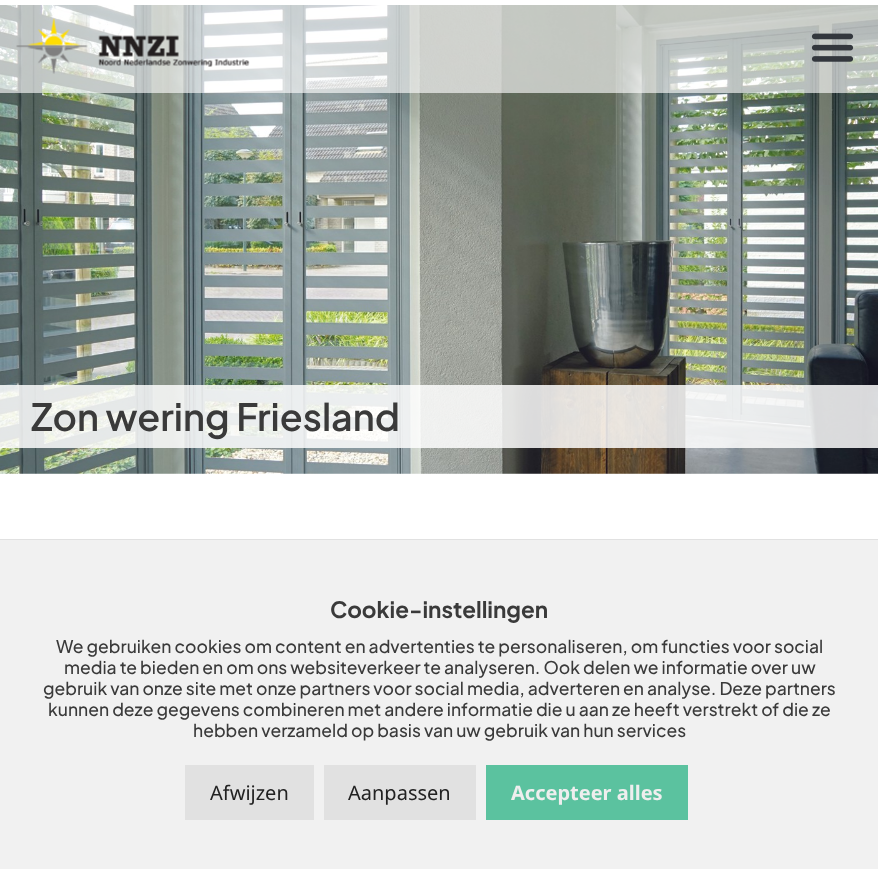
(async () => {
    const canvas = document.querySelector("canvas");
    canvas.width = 878;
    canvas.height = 869;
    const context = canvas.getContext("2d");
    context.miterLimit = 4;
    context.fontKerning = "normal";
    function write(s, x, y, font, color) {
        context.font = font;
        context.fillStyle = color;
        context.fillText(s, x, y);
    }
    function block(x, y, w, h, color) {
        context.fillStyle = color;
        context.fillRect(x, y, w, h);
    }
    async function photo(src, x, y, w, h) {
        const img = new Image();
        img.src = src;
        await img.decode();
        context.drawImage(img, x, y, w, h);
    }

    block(0, 0, 878, 869, "rgb(255, 255, 255)");
    await photo("media/3.png", 0, 5, 878, 469);
    block(0, 5, 878, 88, "rgba(255, 255, 255, 0.63)");
    await photo("media/1.png", 16, 18, 234, 56);
    await photo("media/2.png", 811, 33, 43, 29);
    block(0, 385, 878, 63, "rgba(255, 255, 255, 0.84)");
    write("Zon wering Friesland", 31, 431, "600 37.5px Plus Jakarta Sans", "rgb(58, 58, 58)");
    block(0, 540, 878, 329, "rgb(241, 241, 241)");
    block(0, 539, 878, 1, "rgb(225, 225, 225)");
    write("Cookie-instellingen", 330, 618, "bold 22.5px Plus Jakarta Sans", "rgb(58, 58, 58)");
    write("We gebruiken cookies om content en advertenties te personaliseren, om functies voor social", 56, 653, "500 17.5px Plus Jakarta Sans", "rgb(58, 58, 58)");
    write("media te bieden en om ons websiteverkeer te analyseren. Ook delen we informatie over uw", 64, 674, "500 17.5px Plus Jakarta Sans", "rgb(58, 58, 58)");
    write("gebruik van onze site met onze partners voor social media, adverteren en analyse. Deze partners", 43, 695, "500 17.5px Plus Jakarta Sans", "rgb(58, 58, 58)");
    write("kunnen deze gegevens combineren met andere informatie die u aan ze heeft verstrekt of die ze", 48, 716, "500 17.5px Plus Jakarta Sans", "rgb(58, 58, 58)");
    write("hebben verzameld op basis van uw gebruik van hun services", 193, 737, "500 17.5px Plus Jakarta Sans", "rgb(58, 58, 58)");
    block(185, 765, 129, 55, "rgb(225, 225, 225)");
    write("Afwijzen", 210, 800, "20px Noto Sans", "rgb(34, 34, 34)");
    block(324, 765, 152, 55, "rgb(225, 225, 225)");
    write("Aanpassen", 348, 800, "20px Noto Sans", "rgb(34, 34, 34)");
    block(486, 765, 202, 55, "rgb(91, 194, 159)");
    write("Accepteer alles", 511, 800, "bold 20px Noto Sans", "rgb(238, 238, 238)");
})();
